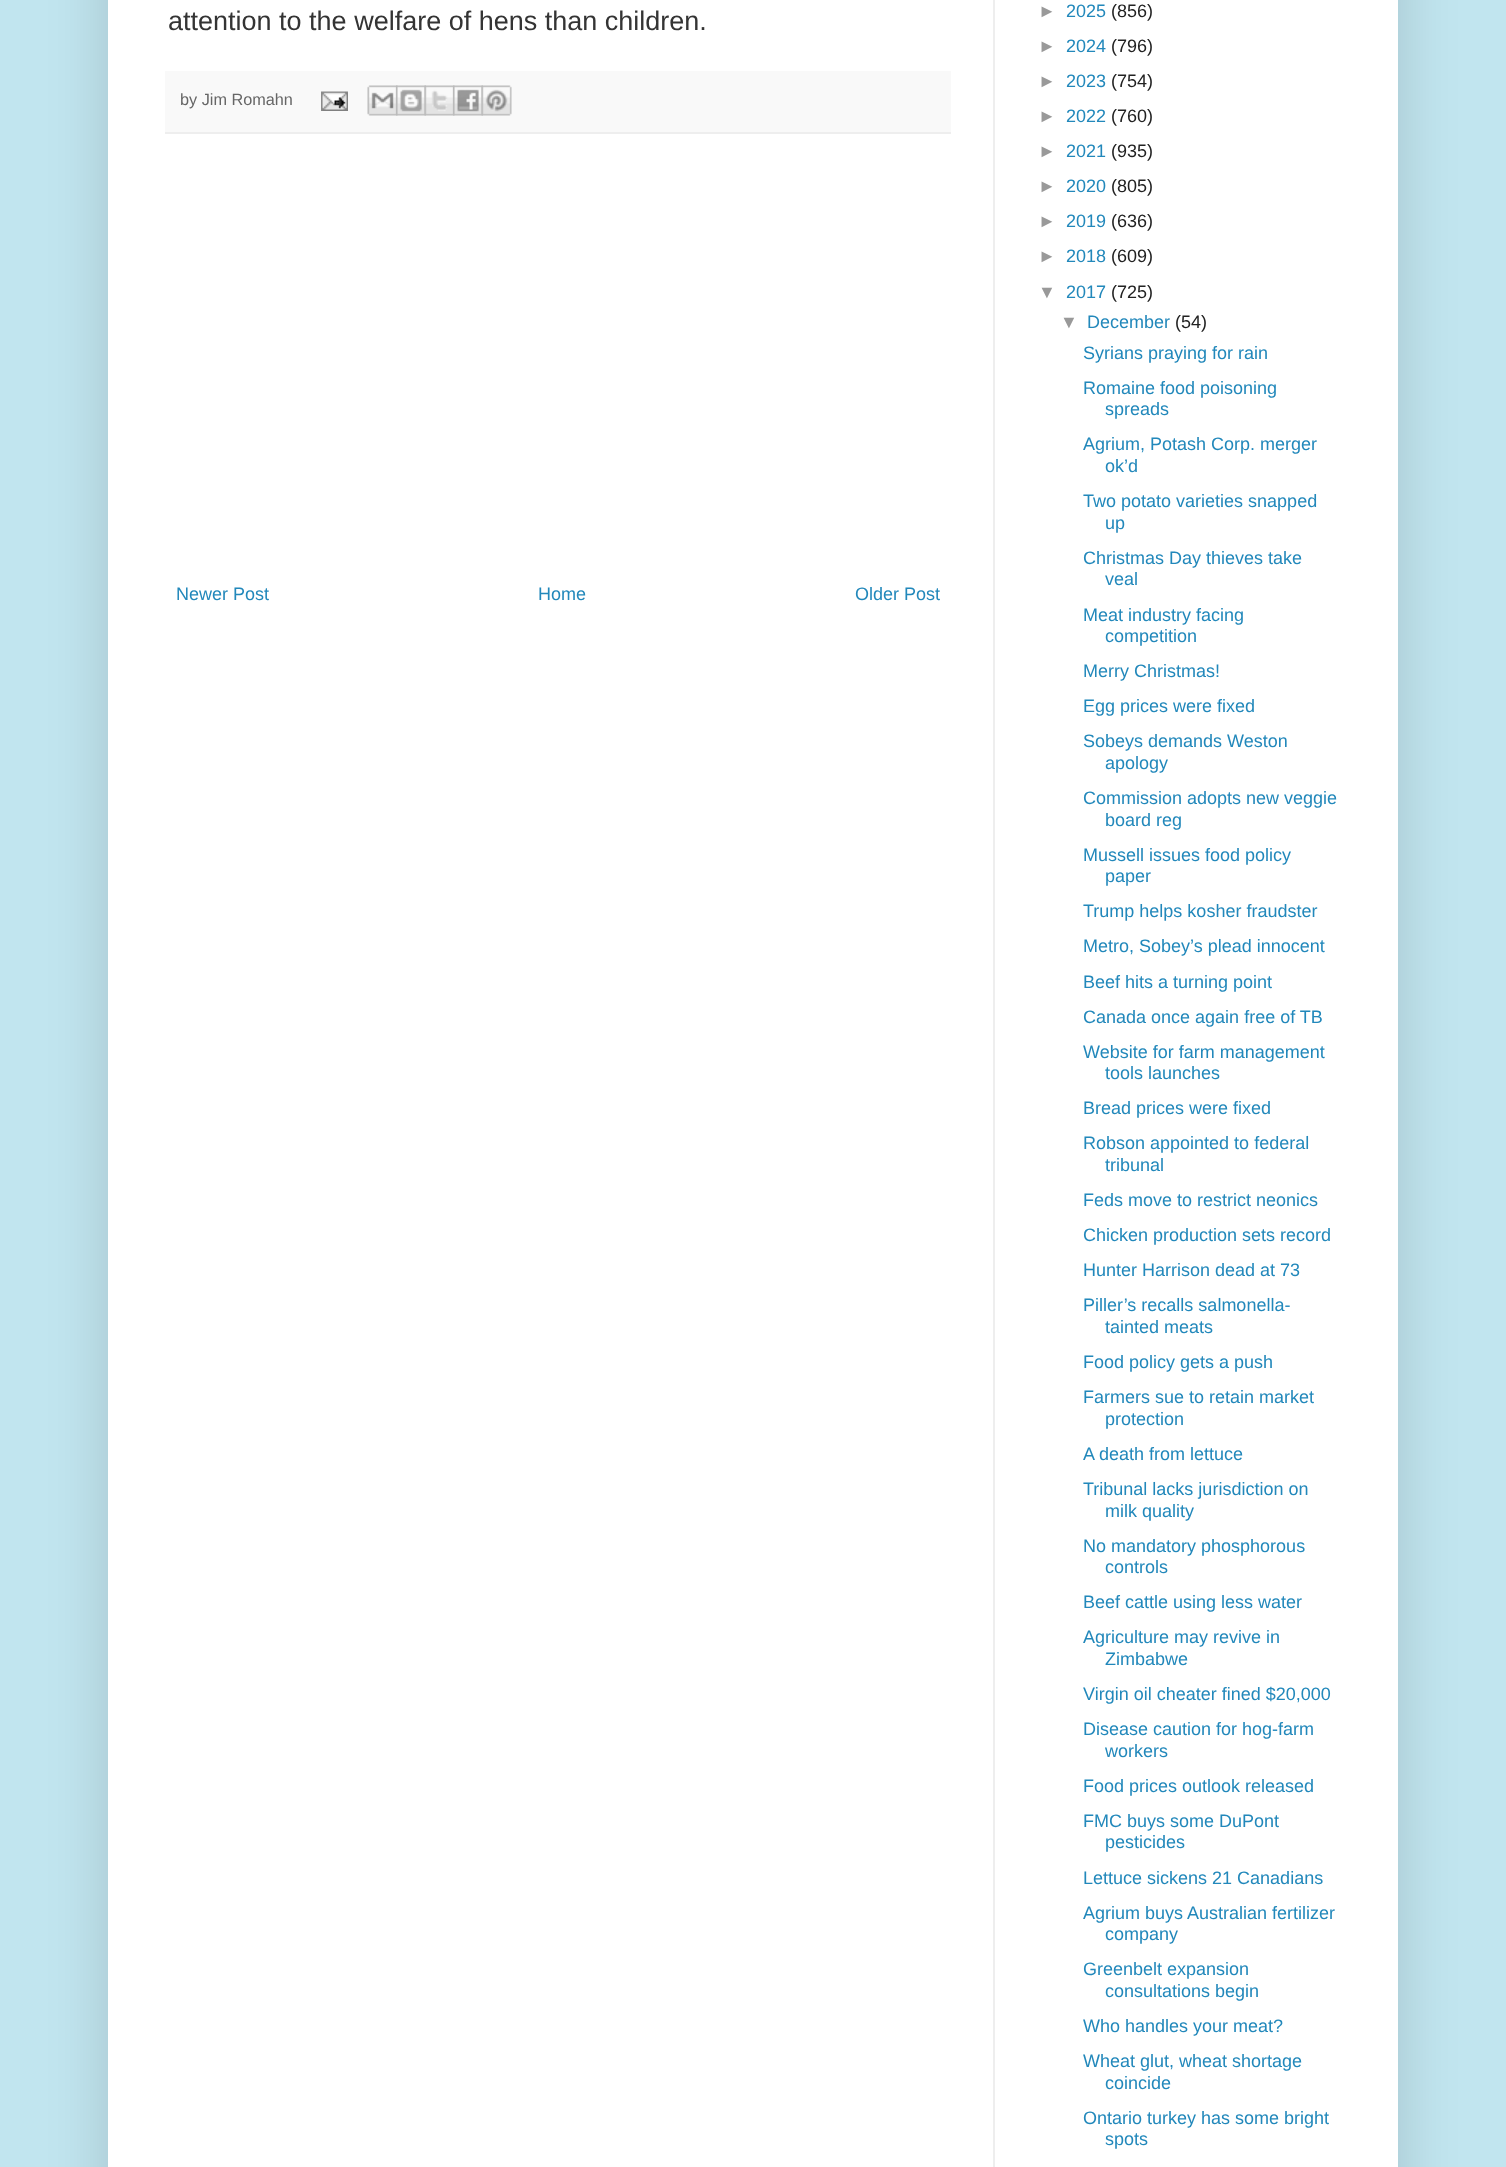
(async () => {
    const canvas = document.querySelector("canvas");
    canvas.width = 1506;
    canvas.height = 2167;
    const context = canvas.getContext("2d");
    context.miterLimit = 4;
    context.fontKerning = "normal";
    function write(s, x, y, font, color) {
        context.font = font;
        context.fillStyle = color;
        context.fillText(s, x, y);
    }
    function block(x, y, w, h, color) {
        context.fillStyle = color;
        context.fillRect(x, y, w, h);
    }
    async function photo(src, x, y, w, h) {
        const img = new Image();
        img.src = src;
        await img.decode();
        context.drawImage(img, x, y, w, h);
    }

    block(0, 0, 1506, 2167, "rgb(193, 229, 239)");
    context.fillStyle = "rgba(0, 0, 0, 0.15)";
    context.filter = "blur(30px)";
    context.beginPath();
    context.rect(108, -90, 1290, 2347);
    context.fill();
    context.filter = "none";
    block(108, 0, 1290, 2167, "rgb(255, 255, 255)");
    block(993, 0, 2, 2167, "rgb(238, 238, 238)");
    write("attention to the welfare of hens than children.", 168, 30, "27px Liberation Sans", "rgb(52, 52, 52)");
    block(165, 71, 786, 61, "rgb(249, 249, 249)");
    block(165, 132, 786, 2, "rgb(238, 238, 238)");
    write("by Jim Romahn", 180, 105, "16.25px Liberation Sans", "rgb(102, 102, 102)");
    await photo("media/1.png", 321, 91, 27, 20);
    await photo("media/2.png", 367, 85, 31, 31);
    await photo("media/3.png", 396, 85, 30, 31);
    await photo("media/4.png", 424, 85, 31, 31);
    await photo("media/5.png", 453, 85, 30, 31);
    await photo("media/6.png", 481, 85, 31, 31);
    write("Newer Post", 176, 600, "18px Liberation Sans", "rgb(34, 136, 187)");
    write("Home", 538, 600, "18px Liberation Sans", "rgb(34, 136, 187)");
    write("Older Post", 855, 600, "18px Liberation Sans", "rgb(34, 136, 187)");
    write("►", 1038, 17, "18px Liberation Sans", "rgb(153, 153, 153)");
    write("2025", 1066, 17, "18px Liberation Sans", "rgb(34, 136, 187)");
    write("(856)", 1111, 17, "18px Liberation Sans", "rgb(34, 34, 34)");
    write("►", 1038, 52, "18px Liberation Sans", "rgb(153, 153, 153)");
    write("2024", 1066, 52, "18px Liberation Sans", "rgb(34, 136, 187)");
    write("(796)", 1111, 52, "18px Liberation Sans", "rgb(34, 34, 34)");
    write("►", 1038, 87, "18px Liberation Sans", "rgb(153, 153, 153)");
    write("2023", 1066, 87, "18px Liberation Sans", "rgb(34, 136, 187)");
    write("(754)", 1111, 87, "18px Liberation Sans", "rgb(34, 34, 34)");
    write("►", 1038, 122, "18px Liberation Sans", "rgb(153, 153, 153)");
    write("2022", 1066, 122, "18px Liberation Sans", "rgb(34, 136, 187)");
    write("(760)", 1111, 122, "18px Liberation Sans", "rgb(34, 34, 34)");
    write("►", 1038, 157, "18px Liberation Sans", "rgb(153, 153, 153)");
    write("2021", 1066, 157, "18px Liberation Sans", "rgb(34, 136, 187)");
    write("(935)", 1111, 157, "18px Liberation Sans", "rgb(34, 34, 34)");
    write("►", 1038, 192, "18px Liberation Sans", "rgb(153, 153, 153)");
    write("2020", 1066, 192, "18px Liberation Sans", "rgb(34, 136, 187)");
    write("(805)", 1111, 192, "18px Liberation Sans", "rgb(34, 34, 34)");
    write("►", 1038, 227, "18px Liberation Sans", "rgb(153, 153, 153)");
    write("2019", 1066, 227, "18px Liberation Sans", "rgb(34, 136, 187)");
    write("(636)", 1111, 227, "18px Liberation Sans", "rgb(34, 34, 34)");
    write("►", 1038, 262, "18px Liberation Sans", "rgb(153, 153, 153)");
    write("2018", 1066, 262, "18px Liberation Sans", "rgb(34, 136, 187)");
    write("(609)", 1111, 262, "18px Liberation Sans", "rgb(34, 34, 34)");
    write("▼", 1038, 298, "18px Liberation Sans", "rgb(153, 153, 153)");
    write("2017", 1066, 298, "18px Liberation Sans", "rgb(34, 136, 187)");
    write("(725)", 1111, 298, "18px Liberation Sans", "rgb(34, 34, 34)");
    write("▼", 1060, 328, "18px Liberation Sans", "rgb(153, 153, 153)");
    write("December", 1087, 328, "18px Liberation Sans", "rgb(34, 136, 187)");
    write("(54)", 1175, 328, "18px Liberation Sans", "rgb(34, 34, 34)");
    write("Syrians praying for rain", 1083, 359, "18px Liberation Sans", "rgb(34, 136, 187)");
    write("Romaine food poisoning", 1083, 394, "18px Liberation Sans", "rgb(34, 136, 187)");
    write("spreads", 1105, 415, "18px Liberation Sans", "rgb(34, 136, 187)");
    write("Agrium, Potash Corp. merger", 1083, 450, "18px Liberation Sans", "rgb(34, 136, 187)");
    write("ok’d", 1105, 472, "18px Liberation Sans", "rgb(34, 136, 187)");
    write("Two potato varieties snapped", 1083, 507, "18px Liberation Sans", "rgb(34, 136, 187)");
    write("up", 1105, 529, "18px Liberation Sans", "rgb(34, 136, 187)");
    write("Christmas Day thieves take", 1083, 564, "18px Liberation Sans", "rgb(34, 136, 187)");
    write("veal", 1105, 585, "18px Liberation Sans", "rgb(34, 136, 187)");
    write("Meat industry facing", 1083, 621, "18px Liberation Sans", "rgb(34, 136, 187)");
    write("competition", 1105, 642, "18px Liberation Sans", "rgb(34, 136, 187)");
    write("Merry Christmas!", 1083, 677, "18px Liberation Sans", "rgb(34, 136, 187)");
    write("Egg prices were fixed", 1083, 712, "18px Liberation Sans", "rgb(34, 136, 187)");
    write("Sobeys demands Weston", 1083, 747, "18px Liberation Sans", "rgb(34, 136, 187)");
    write("apology", 1105, 769, "18px Liberation Sans", "rgb(34, 136, 187)");
    write("Commission adopts new veggie", 1083, 804, "18px Liberation Sans", "rgb(34, 136, 187)");
    write("board reg", 1105, 826, "18px Liberation Sans", "rgb(34, 136, 187)");
    write("Mussell issues food policy", 1083, 861, "18px Liberation Sans", "rgb(34, 136, 187)");
    write("paper", 1105, 882, "18px Liberation Sans", "rgb(34, 136, 187)");
    write("Trump helps kosher fraudster", 1083, 917, "18px Liberation Sans", "rgb(34, 136, 187)");
    write("Metro, Sobey’s plead innocent", 1083, 952, "18px Liberation Sans", "rgb(34, 136, 187)");
    write("Beef hits a turning point", 1083, 988, "18px Liberation Sans", "rgb(34, 136, 187)");
    write("Canada once again free of TB", 1083, 1023, "18px Liberation Sans", "rgb(34, 136, 187)");
    write("Website for farm management", 1083, 1058, "18px Liberation Sans", "rgb(34, 136, 187)");
    write("tools launches", 1105, 1079, "18px Liberation Sans", "rgb(34, 136, 187)");
    write("Bread prices were fixed", 1083, 1114, "18px Liberation Sans", "rgb(34, 136, 187)");
    write("Robson appointed to federal", 1083, 1149, "18px Liberation Sans", "rgb(34, 136, 187)");
    write("tribunal", 1105, 1171, "18px Liberation Sans", "rgb(34, 136, 187)");
    write("Feds move to restrict neonics", 1083, 1206, "18px Liberation Sans", "rgb(34, 136, 187)");
    write("Chicken production sets record", 1083, 1241, "18px Liberation Sans", "rgb(34, 136, 187)");
    write("Hunter Harrison dead at 73", 1083, 1276, "18px Liberation Sans", "rgb(34, 136, 187)");
    write("Piller’s recalls salmonella-", 1083, 1311, "18px Liberation Sans", "rgb(34, 136, 187)");
    write("tainted meats", 1105, 1333, "18px Liberation Sans", "rgb(34, 136, 187)");
    write("Food policy gets a push", 1083, 1368, "18px Liberation Sans", "rgb(34, 136, 187)");
    write("Farmers sue to retain market", 1083, 1403, "18px Liberation Sans", "rgb(34, 136, 187)");
    write("protection", 1105, 1425, "18px Liberation Sans", "rgb(34, 136, 187)");
    write("A death from lettuce", 1083, 1460, "18px Liberation Sans", "rgb(34, 136, 187)");
    write("Tribunal lacks jurisdiction on", 1083, 1495, "18px Liberation Sans", "rgb(34, 136, 187)");
    write("milk quality", 1105, 1517, "18px Liberation Sans", "rgb(34, 136, 187)");
    write("No mandatory phosphorous", 1083, 1552, "18px Liberation Sans", "rgb(34, 136, 187)");
    write("controls", 1105, 1573, "18px Liberation Sans", "rgb(34, 136, 187)");
    write("Beef cattle using less water", 1083, 1608, "18px Liberation Sans", "rgb(34, 136, 187)");
    write("Agriculture may revive in", 1083, 1643, "18px Liberation Sans", "rgb(34, 136, 187)");
    write("Zimbabwe", 1105, 1665, "18px Liberation Sans", "rgb(34, 136, 187)");
    write("Virgin oil cheater fined $20,000", 1083, 1700, "18px Liberation Sans", "rgb(34, 136, 187)");
    write("Disease caution for hog-farm", 1083, 1735, "18px Liberation Sans", "rgb(34, 136, 187)");
    write("workers", 1105, 1757, "18px Liberation Sans", "rgb(34, 136, 187)");
    write("Food prices outlook released", 1083, 1792, "18px Liberation Sans", "rgb(34, 136, 187)");
    write("FMC buys some DuPont", 1083, 1827, "18px Liberation Sans", "rgb(34, 136, 187)");
    write("pesticides", 1105, 1848, "18px Liberation Sans", "rgb(34, 136, 187)");
    write("Lettuce sickens 21 Canadians", 1083, 1884, "18px Liberation Sans", "rgb(34, 136, 187)");
    write("Agrium buys Australian fertilizer", 1083, 1919, "18px Liberation Sans", "rgb(34, 136, 187)");
    write("company", 1105, 1940, "18px Liberation Sans", "rgb(34, 136, 187)");
    write("Greenbelt expansion", 1083, 1975, "18px Liberation Sans", "rgb(34, 136, 187)");
    write("consultations begin", 1105, 1997, "18px Liberation Sans", "rgb(34, 136, 187)");
    write("Who handles your meat?", 1083, 2032, "18px Liberation Sans", "rgb(34, 136, 187)");
    write("Wheat glut, wheat shortage", 1083, 2067, "18px Liberation Sans", "rgb(34, 136, 187)");
    write("coincide", 1105, 2089, "18px Liberation Sans", "rgb(34, 136, 187)");
    write("Ontario turkey has some bright", 1083, 2124, "18px Liberation Sans", "rgb(34, 136, 187)");
    write("spots", 1105, 2145, "18px Liberation Sans", "rgb(34, 136, 187)");
})();
